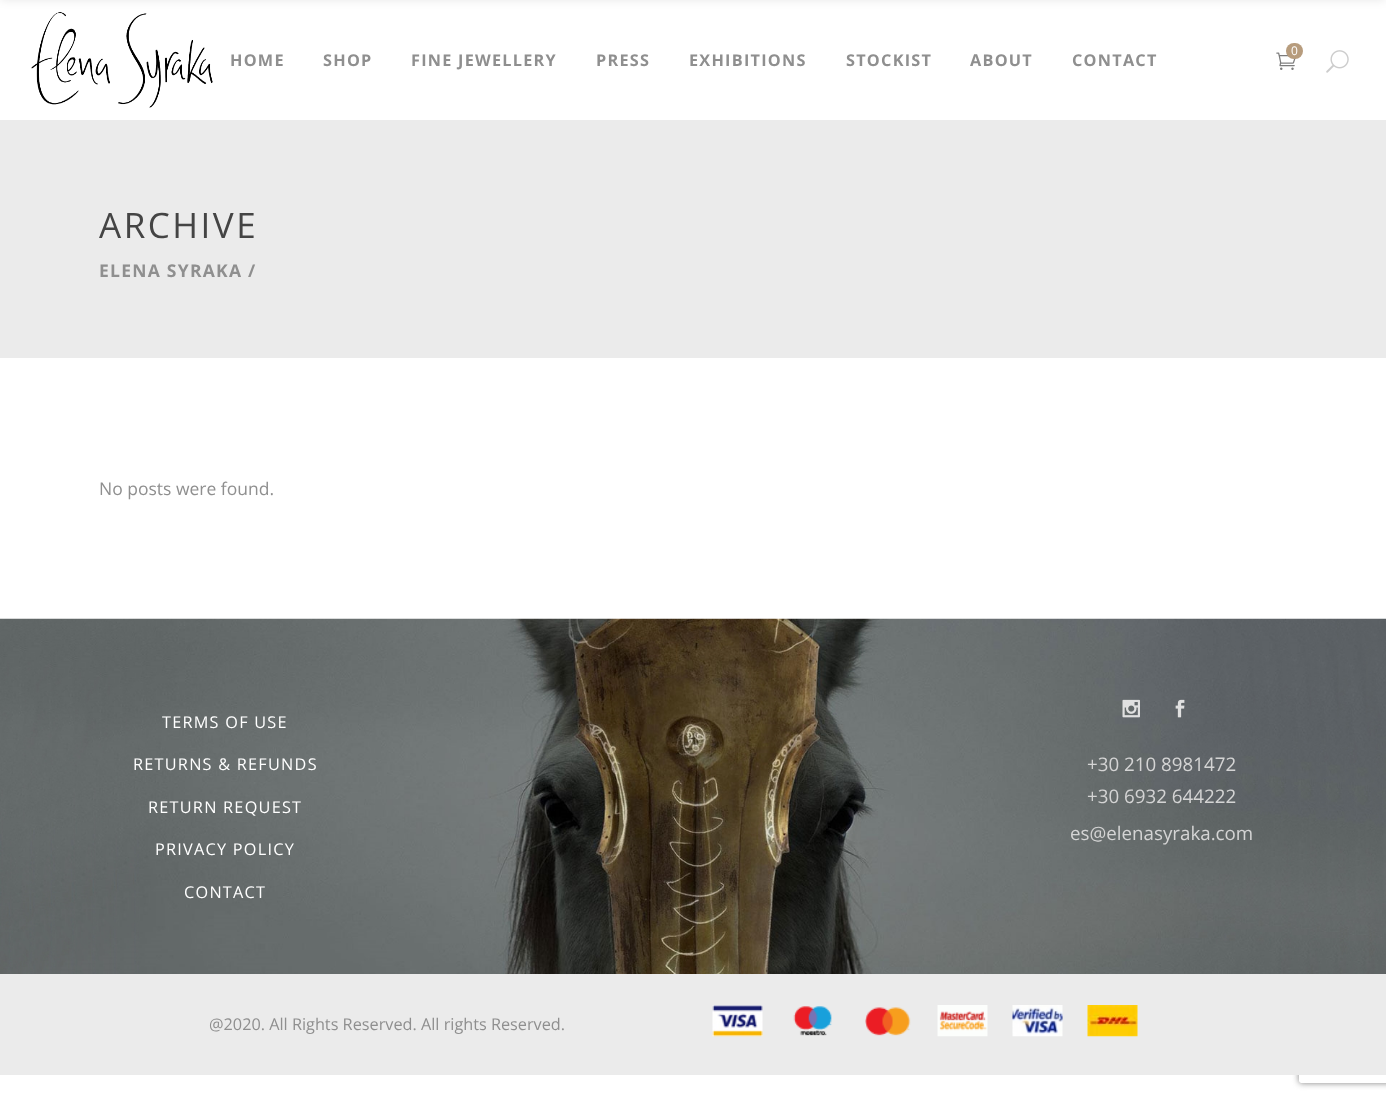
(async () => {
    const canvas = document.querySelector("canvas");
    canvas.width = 1386;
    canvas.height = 1099;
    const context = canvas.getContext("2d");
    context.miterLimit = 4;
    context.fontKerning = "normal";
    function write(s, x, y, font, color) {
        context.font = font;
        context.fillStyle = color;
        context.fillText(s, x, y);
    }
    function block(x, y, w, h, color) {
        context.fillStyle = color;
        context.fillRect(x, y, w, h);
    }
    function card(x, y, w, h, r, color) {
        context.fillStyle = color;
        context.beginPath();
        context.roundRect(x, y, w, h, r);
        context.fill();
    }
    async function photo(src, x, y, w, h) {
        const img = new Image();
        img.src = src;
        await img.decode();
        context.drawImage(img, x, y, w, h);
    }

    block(0, 0, 1386, 1099, "rgb(255, 255, 255)");
    await photo("media/1.png", 31, 12, 182, 96);
    context.fillStyle = "rgba(0, 0, 0, 0.09)";
    context.filter = "blur(5px)";
    context.beginPath();
    context.rect(0, -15, 1386, 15);
    context.fill();
    context.filter = "none";
    await photo("media/2.png", 1276, 52, 20, 18);
    card(1286, 43, 17, 16, 8, "rgb(183, 156, 125)");
    write("0", 1291, 55, "12px Open Sans", "rgb(255, 255, 255)");
    await photo("media/3.png", 1326, 50, 23, 23);
    context.letterSpacing = "1.25px";
    write("HOME", 230, 66, "bold 16.25px Open Sans", "rgb(143, 143, 143)");
    write("SHOP", 323, 66, "bold 16.25px Open Sans", "rgb(143, 143, 143)");
    write("FINE JEWELLERY", 411, 66, "bold 16.25px Open Sans", "rgb(143, 143, 143)");
    write("PRESS", 596, 66, "bold 16.25px Open Sans", "rgb(143, 143, 143)");
    write("EXHIBITIONS", 689, 66, "bold 16.25px Open Sans", "rgb(143, 143, 143)");
    write("STOCKIST", 846, 66, "bold 16.25px Open Sans", "rgb(143, 143, 143)");
    write("ABOUT", 970, 66, "bold 16.25px Open Sans", "rgb(143, 143, 143)");
    write("CONTACT", 1072, 66, "bold 16.25px Open Sans", "rgb(143, 143, 143)");
    block(0, 120, 1386, 238, "rgb(235, 235, 235)");
    context.letterSpacing = "2.5px";
    write("ARCHIVE", 99, 238, "35px Open Sans", "rgb(68, 68, 68)");
    context.letterSpacing = "1.25px";
    write("ELENA SYRAKA /", 99, 277, "bold 17.5px Open Sans", "rgb(143, 143, 143)");
    context.letterSpacing = "0px";
    write("No posts were found.", 99, 495, "17.5px Open Sans", "rgb(143, 143, 143)");
    await photo("media/4.png", 0, 618, 1386, 356);
    context.letterSpacing = "1.25px";
    write("TERMS OF USE", 162, 728, "16.25px Open Sans", "rgb(255, 255, 255)");
    write("RETURNS & REFUNDS", 133, 770, "16.25px Open Sans", "rgb(255, 255, 255)");
    write("RETURN REQUEST", 148, 813, "16.25px Open Sans", "rgb(255, 255, 255)");
    write("PRIVACY POLICY", 155, 855, "16.25px Open Sans", "rgb(255, 255, 255)");
    write("CONTACT", 184, 898, "16.25px Open Sans", "rgb(255, 255, 255)");
    await photo("media/5.png", 1122, 699, 18, 19);
    await photo("media/6.png", 1175, 699, 10, 19);
    context.letterSpacing = "0px";
    write("+30 210 8981472", 1087, 771, "18.75px Open Sans", "rgb(212, 212, 212)");
    write("+30 6932 644222", 1087, 803, "18.75px Open Sans", "rgb(212, 212, 212)");
    write("es@elenasyraka.com", 1070, 840, "18.75px Open Sans", "rgb(212, 212, 212)");
    context.save();
    context.beginPath();
    context.moveTo(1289, 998);
    context.lineTo(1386, 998);
    context.lineTo(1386, 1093);
    context.lineTo(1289, 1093);
    context.closePath();
    context.moveTo(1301.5, 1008);
    context.lineTo(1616.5, 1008);
    context.bezierCurveTo(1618, 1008, 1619, 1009, 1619, 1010.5);
    context.lineTo(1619, 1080.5);
    context.bezierCurveTo(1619, 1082, 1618, 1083, 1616.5, 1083);
    context.lineTo(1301.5, 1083);
    context.bezierCurveTo(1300, 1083, 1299, 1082, 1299, 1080.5);
    context.lineTo(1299, 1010.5);
    context.bezierCurveTo(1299, 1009, 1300, 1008, 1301.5, 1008);
    context.closePath();
    context.clip("evenodd");
    context.fillStyle = "rgb(128, 128, 128)";
    context.filter = "blur(3px)";
    context.beginPath();
    context.roundRect(1299, 1008, 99, 75, 2.5);
    context.fill();
    context.filter = "none";
    context.restore();
    block(0, 974, 1386, 101, "rgb(235, 235, 235)");
    write("@2020. All Rights Reserved. All rights Reserved.", 209, 1030, "16.25px Open Sans", "rgb(143, 143, 143)");
    await photo("media/7.png", 712, 1005, 51, 32);
    await photo("media/8.png", 793, 1006, 39, 30);
    await photo("media/9.png", 865, 1007, 46, 29);
    await photo("media/10.png", 937, 1005, 51, 32);
    await photo("media/11.png", 1012, 1005, 51, 32);
    await photo("media/12.png", 1087, 1005, 51, 32);
})();
